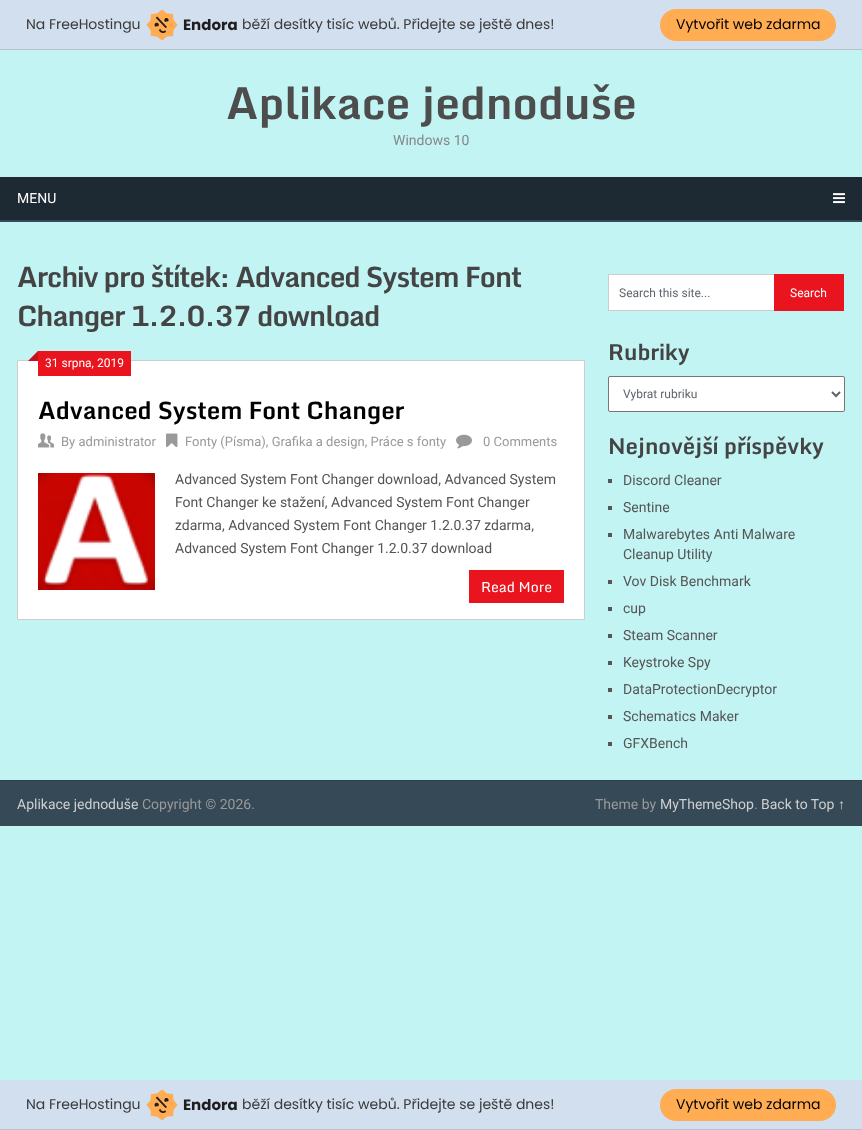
(async () => {
    const canvas = document.querySelector("canvas");
    canvas.width = 862;
    canvas.height = 1130;
    const context = canvas.getContext("2d");
    context.miterLimit = 4;
    context.fontKerning = "normal";
    function write(s, x, y, font, color) {
        context.font = font;
        context.fillStyle = color;
        context.fillText(s, x, y);
    }
    function block(x, y, w, h, color) {
        context.fillStyle = color;
        context.fillRect(x, y, w, h);
    }
    function card(x, y, w, h, r, color) {
        context.fillStyle = color;
        context.beginPath();
        context.roundRect(x, y, w, h, r);
        context.fill();
    }
    async function photo(src, x, y, w, h) {
        const img = new Image();
        img.src = src;
        await img.decode();
        context.drawImage(img, x, y, w, h);
    }

    block(0, 0, 862, 1130, "rgb(195, 244, 244)");
    block(0, 0, 862, 49, "rgb(210, 223, 239)");
    block(0, 49, 862, 1, "rgb(190, 191, 196)");
    write("Na FreeHostingu", 26, 29, "14px Poppins", "rgb(58, 58, 58)");
    await photo("media/1.png", 146, 9, 32, 32);
    write("Endora", 183, 30, "bold 15px Poppins", "rgb(30, 30, 30)");
    write("běží desítky tisíc webů. Přidejte se ještě dnes!", 242, 29, "14px Poppins", "rgb(58, 58, 58)");
    card(660, 9, 176, 32, 16, "rgb(255, 172, 82)");
    write("Vytvořit web zdarma", 676, 29, "14px Poppins", "rgb(0, 0, 0)");
    write("Aplikace jednoduše", 226, 119, "bold 44px Monda", "rgb(77, 77, 77)");
    write("Windows 10", 393, 145, "14px Roboto", "rgb(135, 135, 135)");
    block(0, 220, 862, 2, "rgb(54, 73, 86)");
    block(0, 177, 862, 43, "rgb(29, 41, 51)");
    write("MENU", 17, 203, "14px Roboto", "rgb(255, 255, 255)");
    await photo("media/2.png", 833, 193, 12, 11);
    context.letterSpacing = "-1px";
    write("Archiv pro štítek: Advanced System Font", 17, 287, "bold 28px Monda", "rgb(68, 68, 68)");
    write("Changer 1.2.0.37 download", 17, 326, "bold 28px Monda", "rgb(68, 68, 68)");
    context.fillStyle = "rgb(255, 255, 255)";
    context.beginPath();
    context.rect(17.5, 360.5, 567, 259);
    context.fill();
    context.strokeStyle = "rgb(205, 205, 205)";
    context.stroke();
    block(38, 351, 93, 25, "rgb(234, 20, 31)");
    context.beginPath();
    context.moveTo(38, 361);
    context.lineTo(28, 361);
    context.lineTo(38, 351);
    context.closePath();
    context.fill();
    context.fillStyle = "rgba(0, 0, 0, 0.15)";
    context.beginPath();
    context.moveTo(38, 361);
    context.lineTo(28, 361);
    context.lineTo(38, 351);
    context.closePath();
    context.fill();
    context.letterSpacing = "0px";
    write("31 srpna, 2019", 45, 367, "12px Roboto", "rgb(255, 255, 255)");
    write("Advanced System Font Changer", 38, 419, "bold 24px Monda", "rgb(0, 0, 0)");
    await photo("media/3.png", 38, 433, 16, 15);
    write("By administrator", 61, 446, "13px Roboto", "rgb(153, 153, 153)");
    await photo("media/4.png", 166, 433, 12, 14);
    write("Fonty (Písma), Grafika a design, Práce s fonty", 185, 446, "13px Roboto", "rgb(153, 153, 153)");
    await photo("media/5.png", 456, 434, 16, 15);
    write("0 Comments", 483, 446, "13px Roboto", "rgb(153, 153, 153)");
    await photo("media/6.png", 38, 473, 117, 117);
    write("Advanced System Font Changer download, Advanced System", 175, 484, "14px Roboto", "rgb(85, 85, 85)");
    write("Font Changer ke stažení, Advanced System Font Changer", 175, 507, "14px Roboto", "rgb(85, 85, 85)");
    write("zdarma, Advanced System Font Changer 1.2.0.37 zdarma,", 175, 530, "14px Roboto", "rgb(85, 85, 85)");
    write("Advanced System Font Changer 1.2.0.37 download", 175, 553, "14px Roboto", "rgb(85, 85, 85)");
    block(469, 570, 95, 33, "rgb(234, 20, 31)");
    write("Read More", 481, 592, "14px Monda", "rgb(255, 255, 255)");
    block(609, 275, 165, 35, "rgb(255, 255, 255)");
    block(608, 274, 166, 1, "rgb(204, 204, 204)");
    block(608, 310, 166, 1, "rgb(204, 204, 204)");
    block(608, 274, 1, 37, "rgb(204, 204, 204)");
    write("Search this site...", 619, 297, "12px Roboto", "rgb(94, 101, 109)");
    block(774, 274, 70, 37, "rgb(234, 20, 31)");
    write("Search", 790, 297, "12px Roboto", "rgb(255, 255, 255)");
    write("Rubriky", 608, 360, "bold 22px Monda", "rgb(68, 68, 68)");
    context.fillStyle = "rgb(255, 255, 255)";
    context.beginPath();
    context.roundRect(608.5, 376.5, 236, 35, 1.5);
    context.fill();
    context.strokeStyle = "rgb(118, 118, 118)";
    context.stroke();
    context.beginPath();
    context.moveTo(832, 392);
    context.lineTo(836, 396);
    context.lineTo(840, 392);
    context.strokeStyle = "rgb(94, 101, 109)";
    context.lineWidth = 2;
    context.stroke();
    write("Vybrat rubriku", 623, 398, "12px Roboto", "rgb(94, 101, 109)");
    write("Nejnovější příspěvky", 608, 454, "bold 22px Monda", "rgb(68, 68, 68)");
    block(608, 479, 4, 4, "rgb(85, 85, 85)");
    write("Discord Cleaner", 623, 485, "14px Roboto", "rgb(85, 85, 85)");
    block(608, 506, 4, 4, "rgb(85, 85, 85)");
    write("Sentine", 623, 512, "14px Roboto", "rgb(85, 85, 85)");
    block(608, 533, 4, 4, "rgb(85, 85, 85)");
    write("Malwarebytes Anti Malware", 623, 539, "14px Roboto", "rgb(85, 85, 85)");
    write("Cleanup Utility", 623, 559, "14px Roboto", "rgb(85, 85, 85)");
    block(608, 580, 4, 4, "rgb(85, 85, 85)");
    write("Vov Disk Benchmark", 623, 586, "14px Roboto", "rgb(85, 85, 85)");
    block(608, 607, 4, 4, "rgb(85, 85, 85)");
    write("cup", 623, 613, "14px Roboto", "rgb(85, 85, 85)");
    block(608, 634, 4, 4, "rgb(85, 85, 85)");
    write("Steam Scanner", 623, 640, "14px Roboto", "rgb(85, 85, 85)");
    block(608, 661, 4, 4, "rgb(85, 85, 85)");
    write("Keystroke Spy", 623, 667, "14px Roboto", "rgb(85, 85, 85)");
    block(608, 688, 4, 4, "rgb(85, 85, 85)");
    write("DataProtectionDecryptor", 623, 694, "14px Roboto", "rgb(85, 85, 85)");
    block(608, 715, 4, 4, "rgb(85, 85, 85)");
    write("Schematics Maker", 623, 721, "14px Roboto", "rgb(85, 85, 85)");
    block(608, 742, 4, 4, "rgb(85, 85, 85)");
    write("GFXBench", 623, 748, "14px Roboto", "rgb(85, 85, 85)");
    block(0, 781, 862, 45, "rgb(54, 73, 86)");
    block(0, 780, 862, 1, "rgb(48, 64, 76)");
    write("Aplikace jednoduše", 17, 809, "14px Roboto", "rgb(207, 207, 207)");
    write("Copyright © 2026.", 142, 809, "14px Roboto", "rgb(153, 153, 153)");
    write("Theme by", 595, 809, "14px Roboto", "rgb(153, 153, 153)");
    write("MyThemeShop", 660, 809, "14px Roboto", "rgb(207, 207, 207)");
    write(".", 754, 809, "14px Roboto", "rgb(153, 153, 153)");
    write("Back to Top", 761, 809, "14px Roboto", "rgb(207, 207, 207)");
    write("↑", 838, 809, "14px Liberation Sans", "rgb(207, 207, 207)");
    block(0, 1080, 862, 49, "rgb(210, 223, 239)");
    block(0, 1129, 862, 1, "rgb(190, 191, 196)");
    write("Na FreeHostingu", 26, 1109, "14px Poppins", "rgb(58, 58, 58)");
    await photo("media/1.png", 146, 1089, 32, 32);
    write("Endora", 183, 1110, "bold 15px Poppins", "rgb(30, 30, 30)");
    write("běží desítky tisíc webů. Přidejte se ještě dnes!", 242, 1109, "14px Poppins", "rgb(58, 58, 58)");
    card(660, 1089, 176, 32, 16, "rgb(255, 172, 82)");
    write("Vytvořit web zdarma", 676, 1109, "14px Poppins", "rgb(0, 0, 0)");
})();
